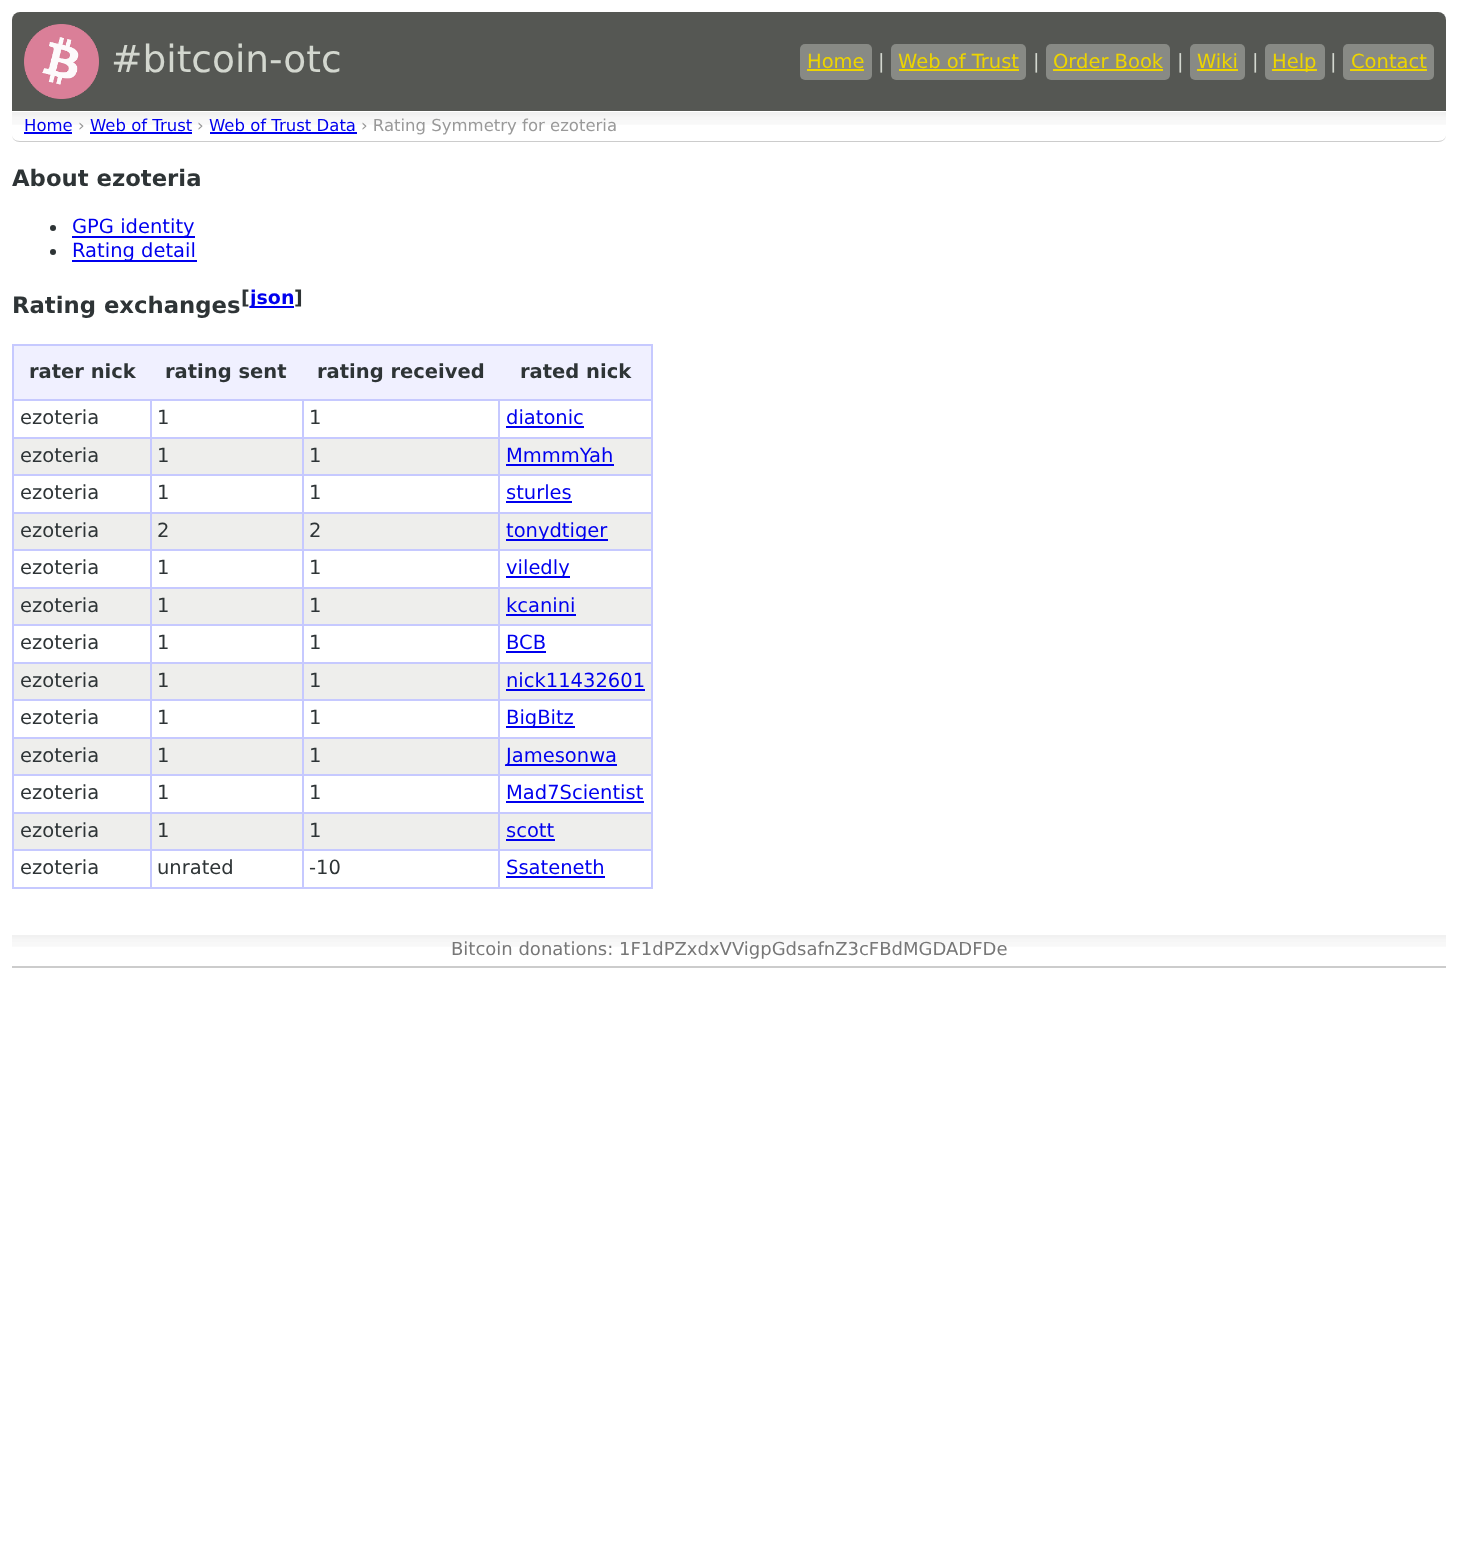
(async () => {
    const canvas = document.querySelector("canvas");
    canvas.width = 1457;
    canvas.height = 1544;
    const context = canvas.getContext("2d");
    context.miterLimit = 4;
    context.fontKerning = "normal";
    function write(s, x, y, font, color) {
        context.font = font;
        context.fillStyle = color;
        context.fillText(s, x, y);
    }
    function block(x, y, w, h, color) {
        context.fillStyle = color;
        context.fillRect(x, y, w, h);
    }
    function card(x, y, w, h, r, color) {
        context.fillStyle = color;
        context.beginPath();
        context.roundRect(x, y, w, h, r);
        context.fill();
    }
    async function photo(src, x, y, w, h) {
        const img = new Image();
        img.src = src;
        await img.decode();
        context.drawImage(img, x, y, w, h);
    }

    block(0, 0, 1457, 1544, "rgb(255, 255, 255)");
    context.fillStyle = "rgb(85, 87, 83)";
    context.beginPath();
    context.roundRect(12, 12, 1434, 99, [8, 8, 0, 0]);
    context.fill();
    await photo("media/1.png", 24, 24, 75, 75);
    write("#bitcoin-otc", 111, 72, "37.5px DejaVu Sans", "rgb(211, 215, 207)");
    card(800, 44, 72, 36, 5, "rgb(136, 138, 133)");
    write("Home", 807, 68, "19.5px DejaVu Sans", "rgb(237, 212, 0)");
    block(807, 69, 57, 2, "rgb(237, 212, 0)");
    write("|", 878, 68, "19.5px DejaVu Sans", "rgb(211, 215, 207)");
    card(891, 44, 135, 36, 5, "rgb(136, 138, 133)");
    write("Web of Trust", 898, 68, "19.5px DejaVu Sans", "rgb(237, 212, 0)");
    block(899, 69, 120, 2, "rgb(237, 212, 0)");
    write("|", 1033, 68, "19.5px DejaVu Sans", "rgb(211, 215, 207)");
    card(1046, 44, 124, 36, 5, "rgb(136, 138, 133)");
    write("Order Book", 1053, 68, "19.5px DejaVu Sans", "rgb(237, 212, 0)");
    block(1053, 69, 110, 2, "rgb(237, 212, 0)");
    write("|", 1177, 68, "19.5px DejaVu Sans", "rgb(211, 215, 207)");
    card(1190, 44, 55, 36, 5, "rgb(136, 138, 133)");
    write("Wiki", 1197, 68, "19.5px DejaVu Sans", "rgb(237, 212, 0)");
    block(1197, 69, 41, 2, "rgb(237, 212, 0)");
    write("|", 1252, 68, "19.5px DejaVu Sans", "rgb(211, 215, 207)");
    card(1265, 44, 60, 36, 5, "rgb(136, 138, 133)");
    block(1272, 69, 45, 2, "rgb(237, 212, 0)");
    write("Help", 1272, 68, "19.5px DejaVu Sans", "rgb(237, 212, 0)");
    write("|", 1330, 68, "19.5px DejaVu Sans", "rgb(211, 215, 207)");
    card(1343, 44, 91, 36, 5, "rgb(136, 138, 133)");
    write("Contact", 1351, 68, "19.5px DejaVu Sans", "rgb(237, 212, 0)");
    block(1350, 69, 77, 2, "rgb(237, 212, 0)");
    await photo("media/2.png", 12, 112, 1434, 13);
    context.fillStyle = "rgb(204, 204, 204)";
    context.beginPath();
    context.moveTo(12, 135);
    context.bezierCurveTo(12, 138, 15, 141, 20, 141);
    context.lineTo(1438, 141);
    context.bezierCurveTo(1443, 141, 1446, 138, 1446, 135);
    context.bezierCurveTo(1446, 139, 1443, 142, 1438, 142);
    context.lineTo(20, 142);
    context.bezierCurveTo(15, 142, 12, 139, 12, 135);
    context.closePath();
    context.fill();
    write("Home", 24, 131, "16.5px DejaVu Sans", "rgb(0, 0, 238)");
    block(24, 132, 48, 2, "rgb(0, 0, 238)");
    write("›", 78, 131, "16.5px DejaVu Sans", "rgb(153, 153, 153)");
    write("Web of Trust", 90, 131, "16.5px DejaVu Sans", "rgb(0, 0, 238)");
    block(90, 132, 102, 2, "rgb(0, 0, 238)");
    write("›", 197, 131, "16.5px DejaVu Sans", "rgb(153, 153, 153)");
    write("Web of Trust Data", 209, 131, "16.5px DejaVu Sans", "rgb(0, 0, 238)");
    block(210, 132, 147, 2, "rgb(0, 0, 238)");
    write("› Rating Symmetry for ezoteria", 361, 131, "16.5px DejaVu Sans", "rgb(153, 153, 153)");
    write("About ezoteria", 12, 186, "bold 22.75px DejaVu Sans", "rgb(46, 52, 54)");
    context.beginPath();
    context.arc(53, 228, 3, 0, Math.PI * 2);
    context.fill();
    block(72, 236, 123, 2, "rgb(0, 0, 238)");
    write("GPG identity", 72, 233, "19.5px DejaVu Sans", "rgb(0, 0, 238)");
    context.fillStyle = "rgb(46, 52, 54)";
    context.beginPath();
    context.arc(53, 252, 3, 0, Math.PI * 2);
    context.fill();
    block(72, 260, 125, 2, "rgb(0, 0, 238)");
    write("Rating detail", 72, 257, "19.5px DejaVu Sans", "rgb(0, 0, 238)");
    write("Rating exchanges", 12, 313, "bold 22.75px DejaVu Sans", "rgb(46, 52, 54)");
    write("[", 241, 304, "bold 19px DejaVu Sans", "rgb(46, 52, 54)");
    block(251, 306, 43, 2, "rgb(0, 0, 238)");
    write("json", 250, 304, "bold 19px DejaVu Sans", "rgb(0, 0, 238)");
    write("]", 294, 304, "bold 19px DejaVu Sans", "rgb(46, 52, 54)");
    block(12, 344, 641, 2, "rgb(198, 201, 255)");
    block(651, 344, 2, 544, "rgb(198, 201, 255)");
    block(12, 887, 641, 2, "rgb(198, 201, 255)");
    block(12, 344, 2, 544, "rgb(198, 201, 255)");
    block(14, 346, 637, 53, "rgb(240, 240, 255)");
    write("rater nick", 29, 378, "bold 19.5px DejaVu Sans", "rgb(46, 52, 54)");
    write("rating sent", 165, 378, "bold 19.5px DejaVu Sans", "rgb(46, 52, 54)");
    write("rating received", 317, 378, "bold 19.5px DejaVu Sans", "rgb(46, 52, 54)");
    write("rated nick", 520, 378, "bold 19.5px DejaVu Sans", "rgb(46, 52, 54)");
    block(498, 399, 155, 2, "rgb(198, 201, 255)");
    block(498, 437, 155, 2, "rgb(198, 201, 255)");
    block(14, 439, 637, 35, "rgb(238, 238, 236)");
    block(498, 474, 155, 2, "rgb(198, 201, 255)");
    block(498, 512, 155, 2, "rgb(198, 201, 255)");
    block(14, 514, 637, 35, "rgb(238, 238, 236)");
    block(498, 549, 155, 2, "rgb(198, 201, 255)");
    block(498, 587, 155, 2, "rgb(198, 201, 255)");
    block(14, 589, 637, 35, "rgb(238, 238, 236)");
    block(498, 624, 155, 2, "rgb(198, 201, 255)");
    block(498, 662, 155, 2, "rgb(198, 201, 255)");
    block(14, 664, 637, 35, "rgb(238, 238, 236)");
    block(498, 699, 155, 2, "rgb(198, 201, 255)");
    block(498, 737, 155, 2, "rgb(198, 201, 255)");
    block(14, 739, 637, 35, "rgb(238, 238, 236)");
    block(498, 774, 155, 2, "rgb(198, 201, 255)");
    block(498, 812, 155, 2, "rgb(198, 201, 255)");
    block(14, 814, 637, 35, "rgb(238, 238, 236)");
    block(498, 849, 155, 2, "rgb(198, 201, 255)");
    block(498, 849, 2, 39, "rgb(198, 201, 255)");
    block(302, 849, 198, 2, "rgb(198, 201, 255)");
    block(498, 812, 2, 39, "rgb(198, 201, 255)");
    block(302, 812, 198, 2, "rgb(198, 201, 255)");
    block(498, 774, 2, 39, "rgb(198, 201, 255)");
    block(302, 774, 198, 2, "rgb(198, 201, 255)");
    block(498, 737, 2, 39, "rgb(198, 201, 255)");
    block(302, 737, 198, 2, "rgb(198, 201, 255)");
    block(498, 699, 2, 39, "rgb(198, 201, 255)");
    block(302, 699, 198, 2, "rgb(198, 201, 255)");
    block(498, 662, 2, 39, "rgb(198, 201, 255)");
    block(302, 662, 198, 2, "rgb(198, 201, 255)");
    block(498, 624, 2, 39, "rgb(198, 201, 255)");
    block(302, 624, 198, 2, "rgb(198, 201, 255)");
    block(498, 587, 2, 39, "rgb(198, 201, 255)");
    block(302, 587, 198, 2, "rgb(198, 201, 255)");
    block(498, 549, 2, 39, "rgb(198, 201, 255)");
    block(302, 549, 198, 2, "rgb(198, 201, 255)");
    block(498, 512, 2, 39, "rgb(198, 201, 255)");
    block(302, 512, 198, 2, "rgb(198, 201, 255)");
    block(498, 474, 2, 39, "rgb(198, 201, 255)");
    block(302, 474, 198, 2, "rgb(198, 201, 255)");
    block(498, 437, 2, 39, "rgb(198, 201, 255)");
    block(302, 437, 198, 2, "rgb(198, 201, 255)");
    block(498, 399, 2, 39, "rgb(198, 201, 255)");
    block(302, 399, 198, 2, "rgb(198, 201, 255)");
    block(302, 849, 2, 39, "rgb(198, 201, 255)");
    block(150, 849, 153, 2, "rgb(198, 201, 255)");
    block(302, 812, 2, 39, "rgb(198, 201, 255)");
    block(150, 812, 153, 2, "rgb(198, 201, 255)");
    block(302, 774, 2, 39, "rgb(198, 201, 255)");
    block(150, 774, 153, 2, "rgb(198, 201, 255)");
    block(302, 737, 2, 39, "rgb(198, 201, 255)");
    block(150, 737, 153, 2, "rgb(198, 201, 255)");
    block(302, 699, 2, 39, "rgb(198, 201, 255)");
    block(150, 699, 153, 2, "rgb(198, 201, 255)");
    block(302, 662, 2, 39, "rgb(198, 201, 255)");
    block(150, 662, 153, 2, "rgb(198, 201, 255)");
    block(302, 624, 2, 39, "rgb(198, 201, 255)");
    block(150, 624, 153, 2, "rgb(198, 201, 255)");
    block(302, 587, 2, 39, "rgb(198, 201, 255)");
    block(150, 587, 153, 2, "rgb(198, 201, 255)");
    block(302, 549, 2, 39, "rgb(198, 201, 255)");
    block(150, 549, 153, 2, "rgb(198, 201, 255)");
    block(302, 512, 2, 39, "rgb(198, 201, 255)");
    block(150, 512, 153, 2, "rgb(198, 201, 255)");
    block(302, 474, 2, 39, "rgb(198, 201, 255)");
    block(150, 474, 153, 2, "rgb(198, 201, 255)");
    block(302, 437, 2, 39, "rgb(198, 201, 255)");
    block(150, 437, 153, 2, "rgb(198, 201, 255)");
    block(302, 399, 2, 39, "rgb(198, 201, 255)");
    block(150, 399, 153, 2, "rgb(198, 201, 255)");
    block(150, 849, 2, 39, "rgb(198, 201, 255)");
    block(12, 849, 140, 2, "rgb(198, 201, 255)");
    block(150, 812, 2, 39, "rgb(198, 201, 255)");
    block(12, 812, 140, 2, "rgb(198, 201, 255)");
    block(150, 774, 2, 39, "rgb(198, 201, 255)");
    block(12, 774, 140, 2, "rgb(198, 201, 255)");
    block(150, 737, 2, 39, "rgb(198, 201, 255)");
    block(12, 737, 140, 2, "rgb(198, 201, 255)");
    block(150, 699, 2, 39, "rgb(198, 201, 255)");
    block(12, 699, 140, 2, "rgb(198, 201, 255)");
    block(150, 662, 2, 39, "rgb(198, 201, 255)");
    block(12, 662, 140, 2, "rgb(198, 201, 255)");
    block(150, 624, 2, 39, "rgb(198, 201, 255)");
    block(12, 624, 140, 2, "rgb(198, 201, 255)");
    block(150, 587, 2, 39, "rgb(198, 201, 255)");
    block(12, 587, 140, 2, "rgb(198, 201, 255)");
    block(150, 549, 2, 39, "rgb(198, 201, 255)");
    block(12, 549, 140, 2, "rgb(198, 201, 255)");
    block(150, 512, 2, 39, "rgb(198, 201, 255)");
    block(12, 512, 140, 2, "rgb(198, 201, 255)");
    block(150, 474, 2, 39, "rgb(198, 201, 255)");
    block(12, 474, 140, 2, "rgb(198, 201, 255)");
    block(150, 437, 2, 39, "rgb(198, 201, 255)");
    block(12, 437, 140, 2, "rgb(198, 201, 255)");
    block(150, 399, 2, 39, "rgb(198, 201, 255)");
    block(12, 399, 140, 2, "rgb(198, 201, 255)");
    write("ezoteria", 20, 424, "19.5px DejaVu Sans", "rgb(46, 52, 54)");
    write("1", 157, 424, "19.5px DejaVu Sans", "rgb(46, 52, 54)");
    write("1", 309, 424, "19.5px DejaVu Sans", "rgb(46, 52, 54)");
    write("diatonic", 506, 424, "19.5px DejaVu Sans", "rgb(0, 0, 238)");
    block(506, 426, 78, 2, "rgb(0, 0, 238)");
    write("ezoteria", 20, 462, "19.5px DejaVu Sans", "rgb(46, 52, 54)");
    write("1", 157, 462, "19.5px DejaVu Sans", "rgb(46, 52, 54)");
    write("1", 309, 462, "19.5px DejaVu Sans", "rgb(46, 52, 54)");
    write("MmmmYah", 506, 462, "19.5px DejaVu Sans", "rgb(0, 0, 238)");
    block(506, 464, 108, 2, "rgb(0, 0, 238)");
    write("ezoteria", 20, 499, "19.5px DejaVu Sans", "rgb(46, 52, 54)");
    write("1", 157, 499, "19.5px DejaVu Sans", "rgb(46, 52, 54)");
    write("1", 309, 499, "19.5px DejaVu Sans", "rgb(46, 52, 54)");
    write("sturles", 506, 499, "19.5px DejaVu Sans", "rgb(0, 0, 238)");
    block(506, 501, 66, 2, "rgb(0, 0, 238)");
    write("ezoteria", 20, 537, "19.5px DejaVu Sans", "rgb(46, 52, 54)");
    write("2", 157, 537, "19.5px DejaVu Sans", "rgb(46, 52, 54)");
    write("2", 309, 537, "19.5px DejaVu Sans", "rgb(46, 52, 54)");
    block(506, 539, 102, 2, "rgb(0, 0, 238)");
    write("tonydtiger", 506, 537, "19.5px DejaVu Sans", "rgb(0, 0, 238)");
    write("ezoteria", 20, 574, "19.5px DejaVu Sans", "rgb(46, 52, 54)");
    write("1", 157, 574, "19.5px DejaVu Sans", "rgb(46, 52, 54)");
    write("1", 309, 574, "19.5px DejaVu Sans", "rgb(46, 52, 54)");
    block(506, 576, 64, 2, "rgb(0, 0, 238)");
    write("viledly", 506, 574, "19.5px DejaVu Sans", "rgb(0, 0, 238)");
    write("ezoteria", 20, 612, "19.5px DejaVu Sans", "rgb(46, 52, 54)");
    write("1", 157, 612, "19.5px DejaVu Sans", "rgb(46, 52, 54)");
    write("1", 309, 612, "19.5px DejaVu Sans", "rgb(46, 52, 54)");
    write("kcanini", 506, 612, "19.5px DejaVu Sans", "rgb(0, 0, 238)");
    block(506, 614, 70, 2, "rgb(0, 0, 238)");
    write("ezoteria", 20, 649, "19.5px DejaVu Sans", "rgb(46, 52, 54)");
    write("1", 157, 649, "19.5px DejaVu Sans", "rgb(46, 52, 54)");
    write("1", 309, 649, "19.5px DejaVu Sans", "rgb(46, 52, 54)");
    write("BCB", 506, 649, "19.5px DejaVu Sans", "rgb(0, 0, 238)");
    block(506, 651, 40, 2, "rgb(0, 0, 238)");
    write("ezoteria", 20, 687, "19.5px DejaVu Sans", "rgb(46, 52, 54)");
    write("1", 157, 687, "19.5px DejaVu Sans", "rgb(46, 52, 54)");
    write("1", 309, 687, "19.5px DejaVu Sans", "rgb(46, 52, 54)");
    write("nick11432601", 506, 687, "19.5px DejaVu Sans", "rgb(0, 0, 238)");
    block(506, 689, 139, 2, "rgb(0, 0, 238)");
    write("ezoteria", 20, 724, "19.5px DejaVu Sans", "rgb(46, 52, 54)");
    write("1", 157, 724, "19.5px DejaVu Sans", "rgb(46, 52, 54)");
    write("1", 309, 724, "19.5px DejaVu Sans", "rgb(46, 52, 54)");
    block(506, 726, 69, 2, "rgb(0, 0, 238)");
    write("BigBitz", 506, 724, "19.5px DejaVu Sans", "rgb(0, 0, 238)");
    write("ezoteria", 20, 762, "19.5px DejaVu Sans", "rgb(46, 52, 54)");
    write("1", 157, 762, "19.5px DejaVu Sans", "rgb(46, 52, 54)");
    write("1", 309, 762, "19.5px DejaVu Sans", "rgb(46, 52, 54)");
    block(506, 764, 111, 2, "rgb(0, 0, 238)");
    write("Jamesonwa", 506, 762, "19.5px DejaVu Sans", "rgb(0, 0, 238)");
    write("ezoteria", 20, 799, "19.5px DejaVu Sans", "rgb(46, 52, 54)");
    write("1", 157, 799, "19.5px DejaVu Sans", "rgb(46, 52, 54)");
    write("1", 309, 799, "19.5px DejaVu Sans", "rgb(46, 52, 54)");
    write("Mad7Scientist", 506, 799, "19.5px DejaVu Sans", "rgb(0, 0, 238)");
    block(506, 801, 138, 2, "rgb(0, 0, 238)");
    write("ezoteria", 20, 837, "19.5px DejaVu Sans", "rgb(46, 52, 54)");
    write("1", 157, 837, "19.5px DejaVu Sans", "rgb(46, 52, 54)");
    write("1", 309, 837, "19.5px DejaVu Sans", "rgb(46, 52, 54)");
    write("scott", 506, 837, "19.5px DejaVu Sans", "rgb(0, 0, 238)");
    block(506, 839, 49, 2, "rgb(0, 0, 238)");
    write("ezoteria", 20, 874, "19.5px DejaVu Sans", "rgb(46, 52, 54)");
    write("unrated", 157, 874, "19.5px DejaVu Sans", "rgb(46, 52, 54)");
    write("-10", 309, 874, "19.5px DejaVu Sans", "rgb(46, 52, 54)");
    write("Ssateneth", 506, 874, "19.5px DejaVu Sans", "rgb(0, 0, 238)");
    block(506, 876, 99, 2, "rgb(0, 0, 238)");
    await photo("media/3.png", 12, 935, 1434, 12);
    block(12, 966, 1434, 2, "rgb(204, 204, 204)");
    write("Bitcoin donations: 1F1dPZxdxVVigpGdsafnZ3cFBdMGDADFDe", 451, 955, "18px DejaVu Sans", "rgb(119, 119, 119)");
})();
